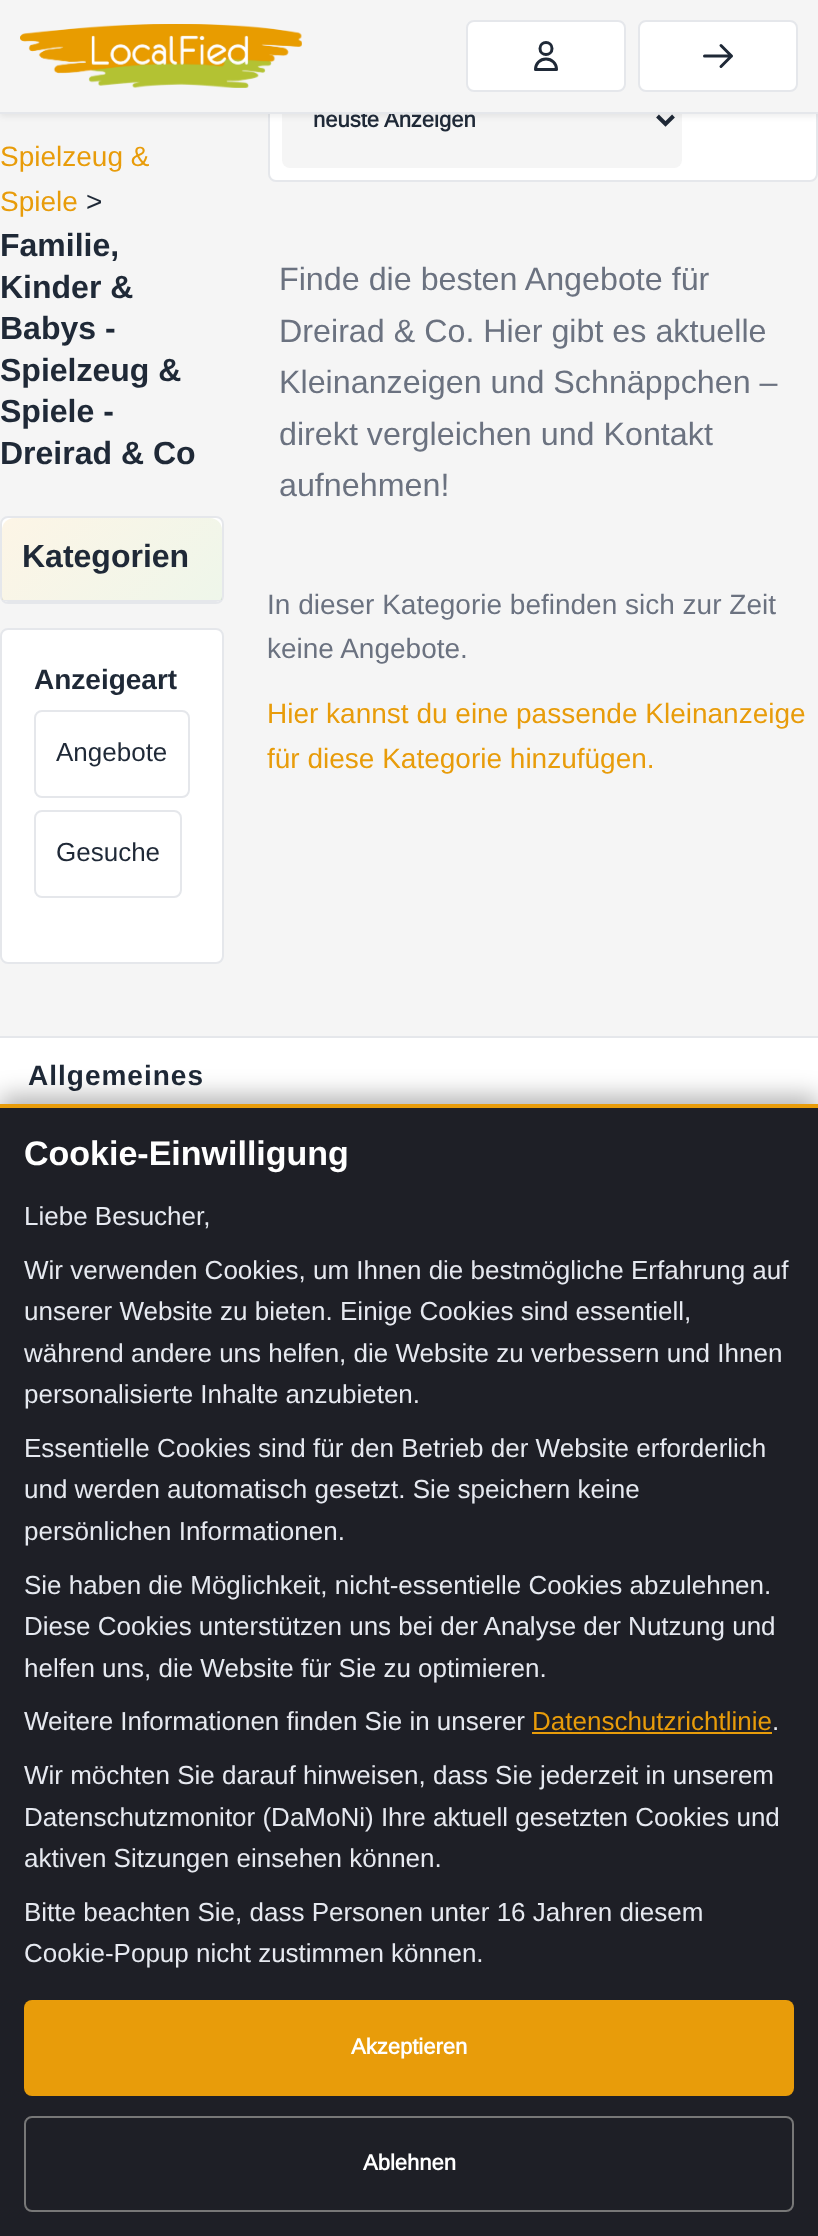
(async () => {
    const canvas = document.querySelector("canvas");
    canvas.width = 818;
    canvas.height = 2236;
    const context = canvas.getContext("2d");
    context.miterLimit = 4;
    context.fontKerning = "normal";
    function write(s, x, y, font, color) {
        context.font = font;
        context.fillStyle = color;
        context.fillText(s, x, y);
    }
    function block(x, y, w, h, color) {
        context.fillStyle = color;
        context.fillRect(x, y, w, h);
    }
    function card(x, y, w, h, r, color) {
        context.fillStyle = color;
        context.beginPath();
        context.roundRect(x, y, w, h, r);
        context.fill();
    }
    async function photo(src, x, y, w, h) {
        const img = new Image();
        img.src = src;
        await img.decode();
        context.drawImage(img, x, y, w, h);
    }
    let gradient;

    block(0, 0, 818, 2236, "rgb(245, 245, 245)");
    context.fillStyle = "rgb(255, 255, 255)";
    context.beginPath();
    context.roundRect(269, 3, 548, 178, 7);
    context.fill();
    context.strokeStyle = "rgb(229, 231, 235)";
    context.lineWidth = 2;
    context.stroke();
    card(282, 72, 400, 96, 8, "rgb(245, 245, 245)");
    context.beginPath();
    context.moveTo(657.5, 116);
    context.lineTo(665.5, 124);
    context.lineTo(673.5, 116);
    context.strokeStyle = "rgb(31, 41, 55)";
    context.lineWidth = 4;
    context.stroke();
    context.fillStyle = "rgba(0, 0, 0, 0.08)";
    context.filter = "blur(3px)";
    context.beginPath();
    context.rect(0, 2, 818, 114);
    context.fill();
    context.filter = "none";
    write("neuste Anzeigen", 313, 127, "bold 22px 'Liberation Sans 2'", "rgb(31, 41, 55)");
    block(0, 0, 818, 112, "rgb(245, 245, 245)");
    block(0, 112, 818, 2, "rgb(229, 231, 235)");
    await photo("media/1.png", 20, 24, 282, 64);
    context.fillStyle = "rgb(255, 255, 255)";
    context.beginPath();
    context.roundRect(467, 21, 158, 70, 7);
    context.fill();
    context.strokeStyle = "rgb(229, 231, 235)";
    context.lineWidth = 2;
    context.stroke();
    context.beginPath();
    context.moveTo(552, 48.5);
    context.bezierCurveTo(552, 56.5, 540, 56.5, 540, 48.5);
    context.bezierCurveTo(540, 40.5, 552, 40.5, 552, 48.5);
    context.closePath();
    context.moveTo(546, 59);
    context.bezierCurveTo(540, 59, 535.5, 63.5, 535.5, 69.5);
    context.lineTo(556.5, 69.5);
    context.bezierCurveTo(556.5, 63.5, 552, 59, 546, 59);
    context.closePath();
    context.strokeStyle = "rgb(31, 41, 55)";
    context.lineWidth = 3;
    context.lineCap = "round";
    context.lineJoin = "round";
    context.stroke();
    context.beginPath();
    context.roundRect(639, 21, 158, 70, 7);
    context.fill();
    context.strokeStyle = "rgb(229, 231, 235)";
    context.lineWidth = 2;
    context.lineJoin = "miter";
    context.stroke();
    context.beginPath();
    context.moveTo(721, 45.5);
    context.lineTo(731.5, 56);
    context.moveTo(731.5, 56);
    context.lineTo(721, 66.5);
    context.moveTo(731.5, 56);
    context.lineTo(704.5, 56);
    context.strokeStyle = "rgb(31, 41, 55)";
    context.lineWidth = 3;
    context.lineJoin = "round";
    context.stroke();
    write("Spielzeug &", 0, 166, "28px Liberation Sans", "rgb(232, 156, 10)");
    write("Spiele", 0, 211, "28px Liberation Sans", "rgb(232, 156, 10)");
    write(">", 86, 211, "28px Liberation Sans", "rgb(31, 41, 55)");
    write("Familie,", 0, 256, "bold 32px Liberation Sans", "rgb(31, 41, 55)");
    write("Kinder &", 0, 298, "bold 32px Liberation Sans", "rgb(31, 41, 55)");
    write("Babys -", 0, 339, "bold 32px Liberation Sans", "rgb(31, 41, 55)");
    write("Spielzeug &", 0, 381, "bold 32px Liberation Sans", "rgb(31, 41, 55)");
    write("Spiele -", 0, 422, "bold 32px Liberation Sans", "rgb(31, 41, 55)");
    write("Dreirad & Co", 0, 464, "bold 32px Liberation Sans", "rgb(31, 41, 55)");
    context.fillStyle = "rgb(255, 255, 255)";
    context.beginPath();
    context.roundRect(1, 517, 222, 86, 7);
    context.fill();
    context.strokeStyle = "rgb(229, 231, 235)";
    context.lineWidth = 2;
    context.lineJoin = "miter";
    context.stroke();
    gradient = context.createLinearGradient(37, 484, 188, 635);
    gradient.addColorStop(0, "rgba(232, 156, 10, 0.1)");
    gradient.addColorStop(1, "rgba(91, 168, 49, 0.1)");
    context.fillStyle = gradient;
    context.beginPath();
    context.roundRect(2, 518, 220, 82, [12, 12, 0, 0]);
    context.fill();
    context.save();
    context.beginPath();
    context.roundRect(2, 518, 220, 84, 6);
    context.clip();
    block(2, 600, 220, 2, "rgb(229, 231, 235)");
    context.restore();
    write("Kategorien", 22, 567, "bold 32px Liberation Sans", "rgb(31, 41, 55)");
    context.fillStyle = "rgb(255, 255, 255)";
    context.beginPath();
    context.roundRect(1, 629, 222, 334, 7);
    context.fill();
    context.stroke();
    write("Anzeigeart", 34, 689, "bold 28px Liberation Sans", "rgb(31, 41, 55)");
    context.beginPath();
    context.roundRect(35, 711, 154, 86, 7);
    context.stroke();
    write("Angebote", 56, 761, "26px Liberation Sans", "rgb(31, 41, 55)");
    context.beginPath();
    context.roundRect(35, 811, 146, 86, 7);
    context.stroke();
    write("Gesuche", 56, 861, "26px Liberation Sans", "rgb(31, 41, 55)");
    write("Finde die besten Angebote für", 279, 290, "32.25px Liberation Sans", "rgb(107, 114, 128)");
    write("Dreirad & Co. Hier gibt es aktuelle", 279, 342, "32.25px Liberation Sans", "rgb(107, 114, 128)");
    write("Kleinanzeigen und Schnäppchen –", 279, 393, "32.25px Liberation Sans", "rgb(107, 114, 128)");
    write("direkt vergleichen und Kontakt", 279, 445, "32.25px Liberation Sans", "rgb(107, 114, 128)");
    write("aufnehmen!", 279, 496, "32.25px Liberation Sans", "rgb(107, 114, 128)");
    write("In dieser Kategorie befinden sich zur Zeit", 267, 614, "28px Liberation Sans", "rgb(107, 114, 128)");
    write("keine Angebote.", 267, 658, "28px Liberation Sans", "rgb(107, 114, 128)");
    write("Hier kannst du eine passende Kleinanzeige", 267, 723, "28px Liberation Sans", "rgb(232, 156, 10)");
    write("für diese Kategorie hinzufügen.", 267, 768, "28px Liberation Sans", "rgb(232, 156, 10)");
    block(0, 1038, 818, 66, "rgb(255, 255, 255)");
    block(0, 1036, 818, 2, "rgb(229, 231, 235)");
    context.letterSpacing = "1px";
    write("Allgemeines", 28, 1085, "bold 28px Liberation Sans", "rgb(31, 41, 55)");
    context.fillStyle = "rgba(0, 0, 0, 0.3)";
    context.filter = "blur(12px)";
    context.beginPath();
    context.rect(0, 1096, 818, 1132);
    context.fill();
    context.filter = "none";
    block(0, 1108, 818, 1128, "rgb(30, 31, 38)");
    block(0, 1104, 818, 4, "rgb(232, 156, 10)");
    context.letterSpacing = "0px";
    write("Cookie-Einwilligung", 24, 1165, "bold 34px Liberation Sans", "rgb(255, 255, 255)");
    write("Liebe Besucher,", 24, 1225, "26px Liberation Sans", "rgb(230, 233, 240)");
    write("Wir verwenden Cookies, um Ihnen die bestmögliche Erfahrung auf", 24, 1279, "26px Liberation Sans", "rgb(230, 233, 240)");
    write("unserer Website zu bieten. Einige Cookies sind essentiell,", 24, 1320, "26px Liberation Sans", "rgb(230, 233, 240)");
    write("während andere uns helfen, die Website zu verbessern und Ihnen", 24, 1362, "26px Liberation Sans", "rgb(230, 233, 240)");
    write("personalisierte Inhalte anzubieten.", 24, 1403, "26px Liberation Sans", "rgb(230, 233, 240)");
    write("Essentielle Cookies sind für den Betrieb der Website erforderlich", 24, 1457, "26px Liberation Sans", "rgb(230, 233, 240)");
    write("und werden automatisch gesetzt. Sie speichern keine", 24, 1498, "26px Liberation Sans", "rgb(230, 233, 240)");
    write("persönlichen Informationen.", 24, 1540, "26px Liberation Sans", "rgb(230, 233, 240)");
    write("Sie haben die Möglichkeit, nicht-essentielle Cookies abzulehnen.", 24, 1594, "26px Liberation Sans", "rgb(230, 233, 240)");
    write("Diese Cookies unterstützen uns bei der Analyse der Nutzung und", 24, 1635, "26px Liberation Sans", "rgb(230, 233, 240)");
    write("helfen uns, die Website für Sie zu optimieren.", 24, 1677, "26px Liberation Sans", "rgb(230, 233, 240)");
    write("Weitere Informationen finden Sie in unserer", 24, 1730, "26px Liberation Sans", "rgb(230, 233, 240)");
    write("Datenschutzrichtlinie", 532, 1730, "26px Liberation Sans", "rgb(232, 156, 10)");
    block(532, 1732, 240, 2, "rgb(232, 156, 10)");
    write(".", 772, 1730, "26px Liberation Sans", "rgb(230, 233, 240)");
    write("Wir möchten Sie darauf hinweisen, dass Sie jederzeit in unserem", 24, 1784, "26px Liberation Sans", "rgb(230, 233, 240)");
    write("Datenschutzmonitor (DaMoNi) Ihre aktuell gesetzten Cookies und", 24, 1826, "26px Liberation Sans", "rgb(230, 233, 240)");
    write("aktiven Sitzungen einsehen können.", 24, 1867, "26px Liberation Sans", "rgb(230, 233, 240)");
    write("Bitte beachten Sie, dass Personen unter 16 Jahren diesem", 24, 1921, "26px Liberation Sans", "rgb(230, 233, 240)");
    write("Cookie-Popup nicht zustimmen können.", 24, 1962, "26px Liberation Sans", "rgb(230, 233, 240)");
    card(24, 2000, 770, 96, 8, "rgb(232, 156, 10)");
    write("Akzeptieren", 351, 2054, "bold 22px 'Liberation Sans 2'", "rgb(255, 255, 255)");
    context.beginPath();
    context.roundRect(25, 2117, 768, 94, 7);
    context.strokeStyle = "rgb(119, 119, 119)";
    context.stroke();
    write("Ablehnen", 363, 2170, "bold 22px 'Liberation Sans 2'", "rgb(255, 255, 255)");
})();
